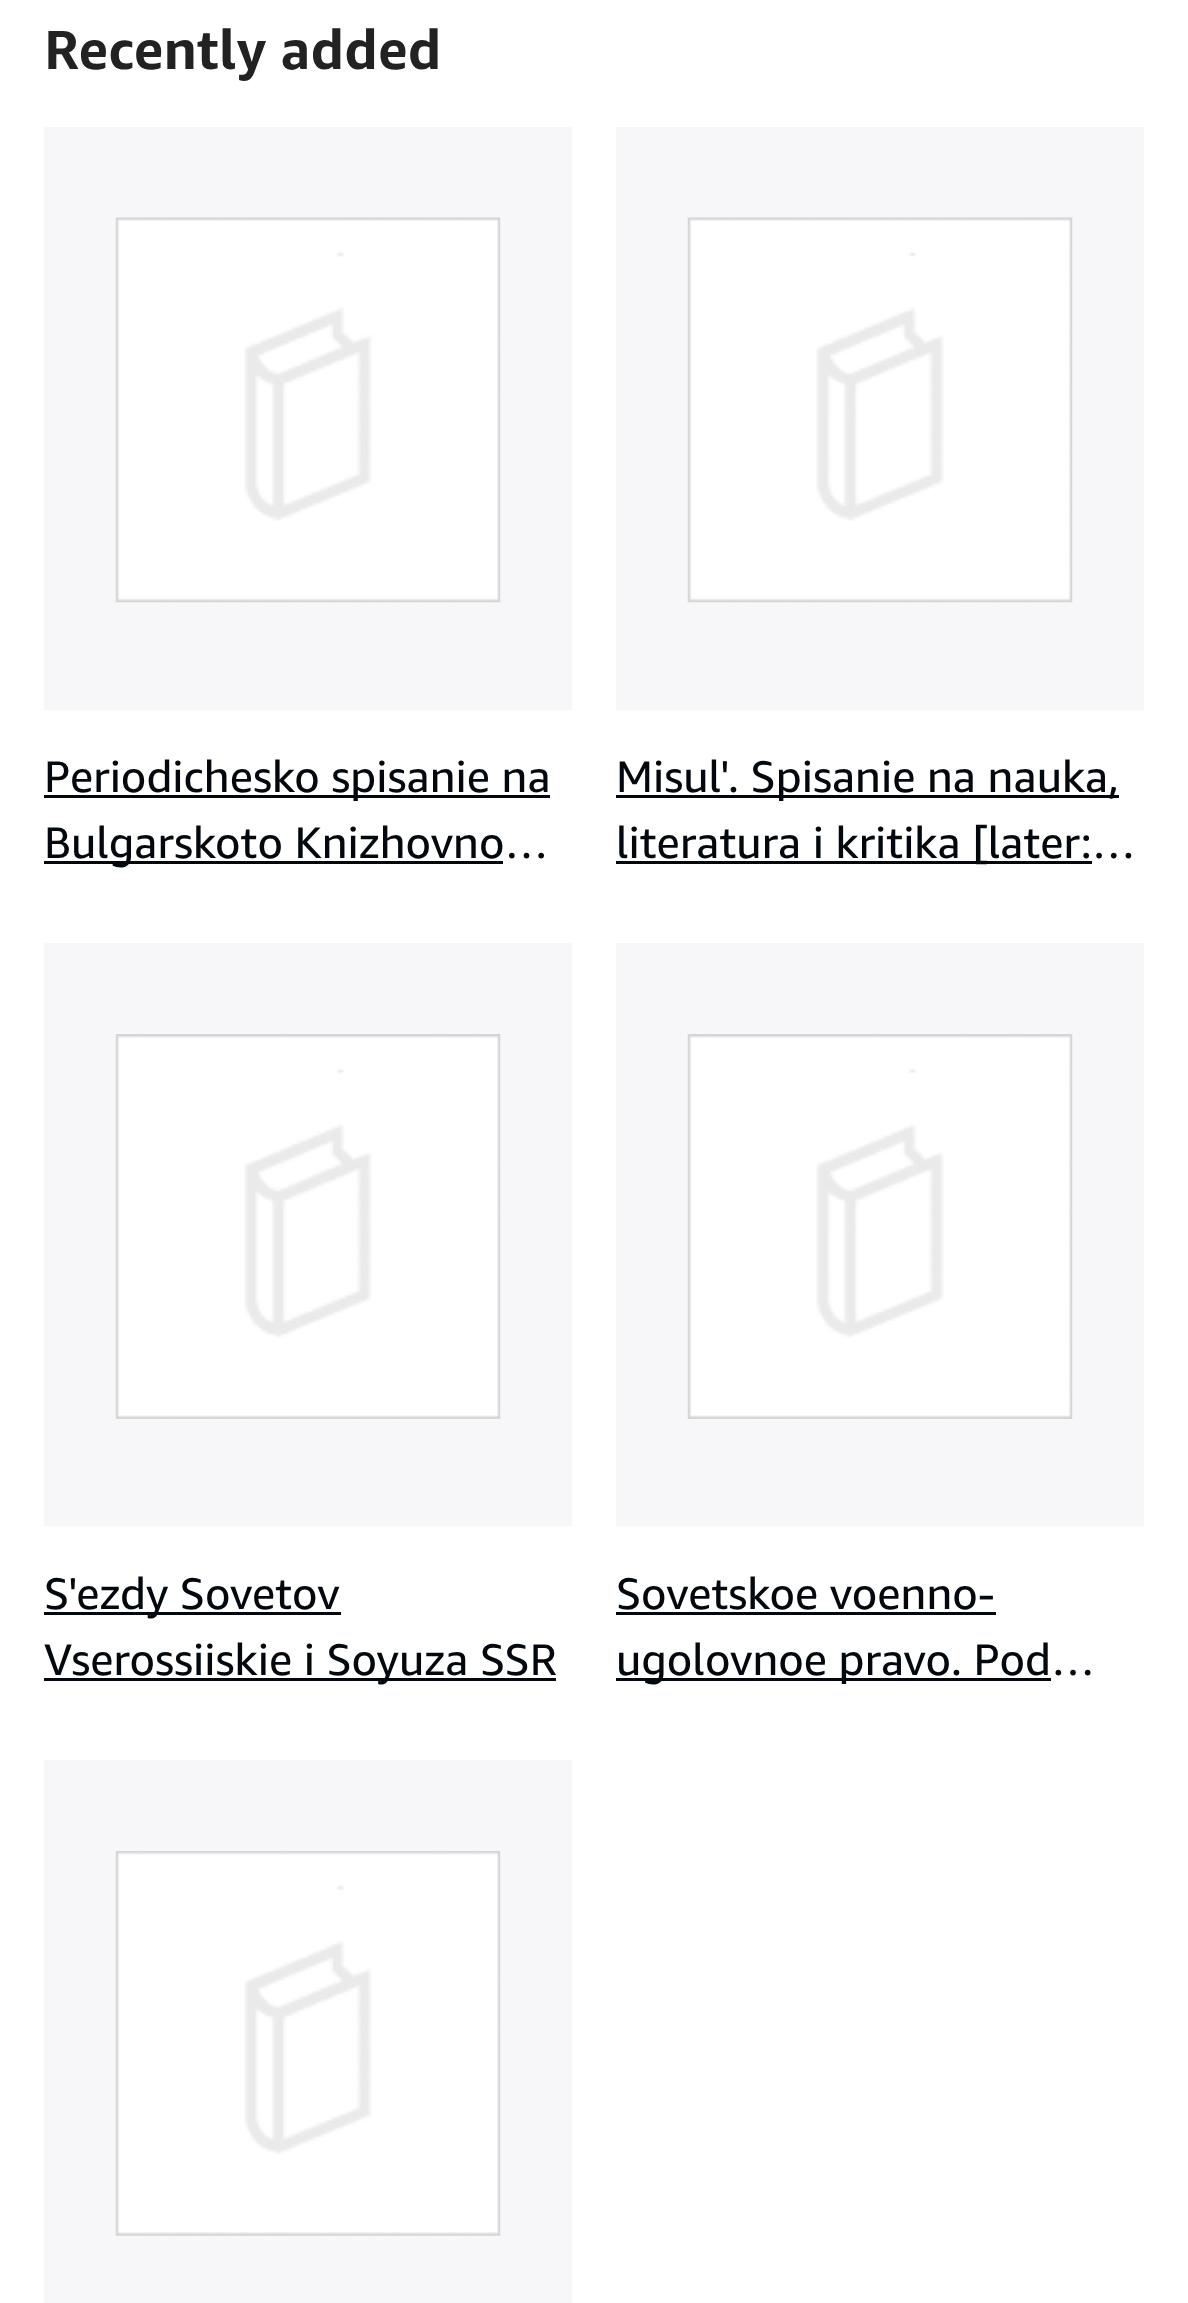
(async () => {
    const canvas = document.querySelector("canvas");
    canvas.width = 1188;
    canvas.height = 2303;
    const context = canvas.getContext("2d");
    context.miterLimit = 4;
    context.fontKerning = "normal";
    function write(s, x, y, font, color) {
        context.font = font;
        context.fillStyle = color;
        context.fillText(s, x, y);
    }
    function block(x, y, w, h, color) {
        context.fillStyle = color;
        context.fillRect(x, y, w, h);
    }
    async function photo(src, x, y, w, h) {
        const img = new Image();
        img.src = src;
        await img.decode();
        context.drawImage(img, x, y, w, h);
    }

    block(0, 0, 1188, 2303, "rgb(255, 255, 255)");
    write("Recently added", 44, 69, "bold 55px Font", "rgb(34, 34, 34)");
    block(44, 127, 528, 583, "rgb(247, 246, 248)");
    await photo("media/1.png", 115, 217, 386, 386);
    block(44, 795, 506, 3, "rgb(2, 8, 14)");
    write("Periodichesko spisanie na", 44, 792, "44px Font", "rgb(2, 8, 14)");
    block(44, 861, 459, 3, "rgb(2, 8, 14)");
    write("Bulgarskoto Knizhovno…", 44, 858, "44px Font", "rgb(2, 8, 14)");
    block(616, 127, 528, 583, "rgb(247, 246, 248)");
    await photo("media/2.png", 687, 217, 386, 386);
    block(616, 795, 503, 3, "rgb(2, 8, 14)");
    write("Misul'. Spisanie na nauka,", 616, 792, "44px Font", "rgb(2, 8, 14)");
    block(616, 861, 476, 3, "rgb(2, 8, 14)");
    write("literatura i kritika [later:…", 616, 858, "44px Font", "rgb(2, 8, 14)");
    block(44, 943, 528, 583, "rgb(247, 246, 248)");
    await photo("media/3.png", 115, 1034, 386, 385);
    block(44, 1612, 297, 3, "rgb(2, 8, 14)");
    write("S'ezdy Sovetov", 44, 1609, "44px Font", "rgb(2, 8, 14)");
    block(44, 1678, 512, 3, "rgb(2, 8, 14)");
    write("Vserossiiskie i Soyuza SSR", 44, 1675, "44px Font", "rgb(2, 8, 14)");
    block(616, 943, 528, 583, "rgb(247, 246, 248)");
    await photo("media/4.png", 687, 1034, 386, 385);
    write("Sovetskoe voenno-", 616, 1609, "44px Font", "rgb(2, 8, 14)");
    block(616, 1612, 380, 3, "rgb(2, 8, 14)");
    block(616, 1678, 435, 3, "rgb(2, 8, 14)");
    write("ugolovnoe pravo. Pod…", 616, 1675, "44px Font", "rgb(2, 8, 14)");
    block(44, 1760, 528, 543, "rgb(247, 246, 248)");
    await photo("media/5.png", 115, 1851, 386, 385);
})();
